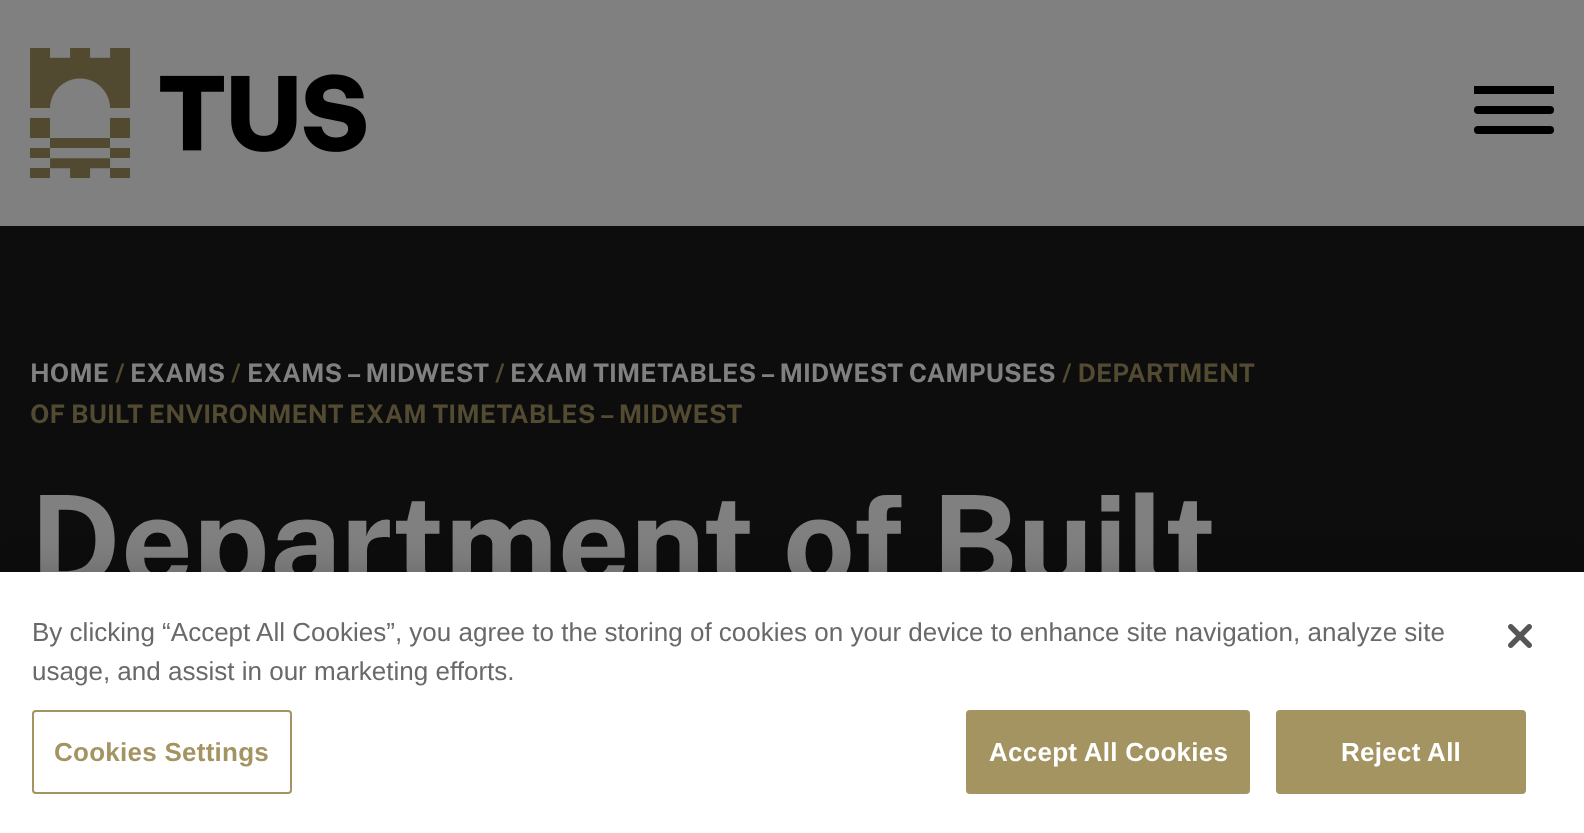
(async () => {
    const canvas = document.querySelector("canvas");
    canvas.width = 1584;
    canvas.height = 833;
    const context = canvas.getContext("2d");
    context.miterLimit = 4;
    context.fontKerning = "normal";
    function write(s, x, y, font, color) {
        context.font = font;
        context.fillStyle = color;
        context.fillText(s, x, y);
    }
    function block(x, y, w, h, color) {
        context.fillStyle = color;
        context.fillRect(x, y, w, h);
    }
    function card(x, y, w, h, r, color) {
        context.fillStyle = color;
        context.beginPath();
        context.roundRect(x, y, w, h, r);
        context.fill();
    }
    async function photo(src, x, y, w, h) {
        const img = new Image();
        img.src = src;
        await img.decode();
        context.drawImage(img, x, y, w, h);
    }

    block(0, 0, 1584, 833, "rgb(128, 128, 128)");
    await photo("media/1.png", 30, 48, 336, 130);
    block(1474, 86, 80, 8, "rgb(0, 0, 0)");
    card(1474, 106, 80, 8, 4, "rgb(0, 0, 0)");
    card(1474, 126, 80, 8, 4, "rgb(0, 0, 0)");
    block(0, 226, 1584, 346, "rgb(13, 13, 13)");
    write("HOME", 30, 382, "bold 25.6px Public Sans", "rgb(128, 128, 128)");
    write("/", 115, 382, "bold 25.6px Public Sans", "rgb(82, 74, 49)");
    write("EXAMS", 130, 382, "bold 25.6px Public Sans", "rgb(128, 128, 128)");
    write("/", 231, 382, "bold 25.6px Public Sans", "rgb(82, 74, 49)");
    write("EXAMS – MIDWEST", 247, 382, "bold 25.6px Public Sans", "rgb(128, 128, 128)");
    write("/", 495, 382, "bold 25.6px Public Sans", "rgb(82, 74, 49)");
    write("EXAM TIMETABLES – MIDWEST CAMPUSES", 510, 382, "bold 25.6px Public Sans", "rgb(128, 128, 128)");
    write("/ DEPARTMENT", 1062, 382, "bold 25.6px Public Sans", "rgb(82, 74, 49)");
    write("OF BUILT ENVIRONMENT EXAM TIMETABLES – MIDWEST", 30, 423, "bold 25.6px Public Sans", "rgb(82, 74, 49)");
    write("Department of Built", 30, 586, "bold 126px Public Sans", "rgb(128, 128, 128)");
    context.fillStyle = "rgba(0, 0, 0, 0.2)";
    context.filter = "blur(18px)";
    context.beginPath();
    context.rect(0, 572, 1584, 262);
    context.fill();
    context.filter = "none";
    block(0, 572, 1584, 261, "rgb(255, 255, 255)");
    write("By clicking “Accept All Cookies”, you agree to the storing of cookies on your device to enhance site navigation, analyze site", 32, 641, "26.02px Liberation Sans", "rgb(105, 105, 105)");
    write("usage, and assist in our marketing efforts.", 32, 680, "26.02px Liberation Sans", "rgb(105, 105, 105)");
    context.beginPath();
    context.roundRect(33, 711, 258, 82, 3);
    context.strokeStyle = "rgb(163, 148, 97)";
    context.lineWidth = 2;
    context.stroke();
    context.letterSpacing = "0.25px";
    write("Cookies Settings", 54, 761, "bold 26.02px Liberation Sans", "rgb(163, 148, 97)");
    context.beginPath();
    context.roundRect(967, 711, 282, 82, 3);
    context.fill();
    context.stroke();
    write("Accept All Cookies", 989, 761, "bold 26.02px Liberation Sans", "rgb(255, 255, 255)");
    context.fillStyle = "rgb(163, 148, 97)";
    context.beginPath();
    context.roundRect(1277, 711, 248, 82, 3);
    context.fill();
    context.stroke();
    write("Reject All", 1341, 761, "bold 26.02px Liberation Sans", "rgb(255, 255, 255)");
    await photo("media/2.png", 1508, 624, 24, 24);
})();
